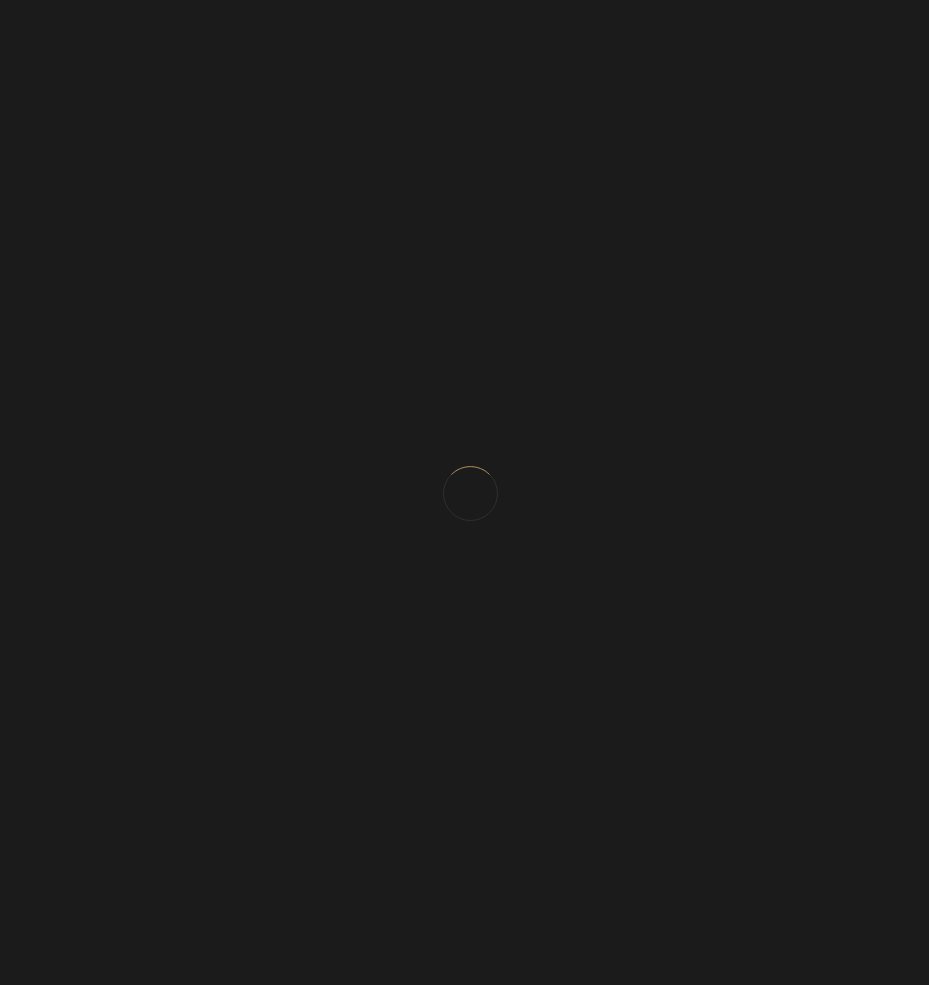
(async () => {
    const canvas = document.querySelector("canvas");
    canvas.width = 929;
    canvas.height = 985;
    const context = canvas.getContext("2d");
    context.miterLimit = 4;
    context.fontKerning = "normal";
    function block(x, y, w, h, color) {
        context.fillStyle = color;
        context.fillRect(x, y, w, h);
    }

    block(0, 0, 929, 985, "rgb(27, 27, 27)");
    context.beginPath();
    context.arc(470.5, 493.5, 27, 0, Math.PI * 2);
    context.strokeStyle = "rgb(47, 47, 47)";
    context.stroke();
    context.beginPath();
    context.moveTo(451.5, 474.5);
    context.bezierCurveTo(462, 464, 479, 464, 489.5, 474.5);
    context.strokeStyle = "rgb(171, 139, 87)";
    context.stroke();
})();
